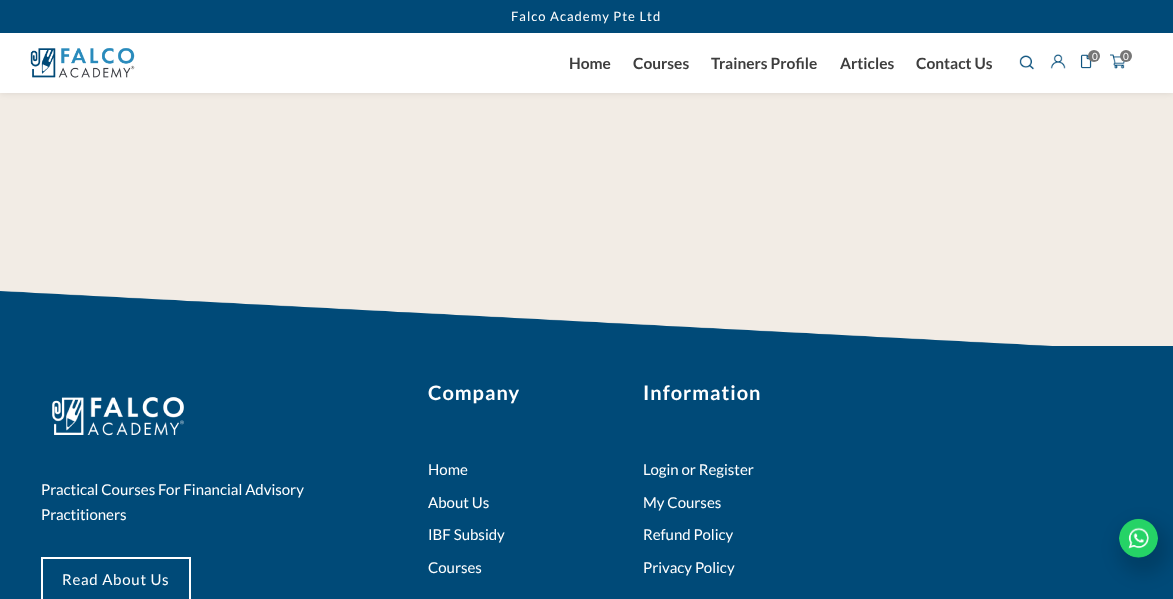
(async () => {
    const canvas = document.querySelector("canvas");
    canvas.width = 1173;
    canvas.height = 599;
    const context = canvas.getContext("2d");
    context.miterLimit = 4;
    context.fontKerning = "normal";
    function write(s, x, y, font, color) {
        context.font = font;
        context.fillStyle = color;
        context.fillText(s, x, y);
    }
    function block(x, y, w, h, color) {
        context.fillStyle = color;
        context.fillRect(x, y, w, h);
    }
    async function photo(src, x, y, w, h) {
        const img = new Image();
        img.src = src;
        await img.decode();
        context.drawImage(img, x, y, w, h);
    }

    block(0, 0, 1173, 599, "rgb(242, 236, 229)");
    context.fillStyle = "rgba(0, 0, 0, 0.1)";
    context.filter = "blur(3.5px)";
    context.beginPath();
    context.rect(0, 0, 1173, 93);
    context.fill();
    context.filter = "none";
    block(0, 33, 1173, 60, "rgb(255, 255, 255)");
    block(0, 0, 1173, 33, "rgb(0, 74, 120)");
    context.letterSpacing = "1px";
    write("Falco Academy Pte Ltd", 511, 21, "13px Lato", "rgb(255, 255, 255)");
    await photo("media/1.png", 30, 48, 105, 30);
    context.letterSpacing = "0px";
    write("Home", 569, 69, "bold 15.5px Lato", "rgb(62, 62, 62)");
    write("Courses", 633, 69, "bold 15.5px Lato", "rgb(62, 62, 62)");
    write("Trainers Profile", 711, 69, "bold 15.5px Lato", "rgb(62, 62, 62)");
    write("Articles", 840, 69, "bold 15.5px Lato", "rgb(62, 62, 62)");
    write("Contact Us", 916, 69, "bold 15.5px Lato", "rgb(62, 62, 62)");
    await photo("media/2.png", 1019, 55, 16, 15);
    await photo("media/3.png", 1050, 54, 16, 15);
    await photo("media/4.png", 1080, 54, 12, 15);
    context.fillStyle = "rgb(118, 118, 118)";
    context.beginPath();
    context.arc(1094, 56, 6, 0, Math.PI * 2);
    context.fill();
    write("0", 1092, 60, "10px Lato", "rgb(255, 255, 255)");
    await photo("media/5.png", 1110, 54, 15, 15);
    context.fillStyle = "rgb(118, 118, 118)";
    context.beginPath();
    context.arc(1126, 56, 6, 0, Math.PI * 2);
    context.fill();
    write("0", 1123, 60, "10px Lato", "rgb(255, 255, 255)");
    await photo("media/6.png", 0, 291, 1052, 55);
    block(0, 346, 1173, 253, "rgb(0, 74, 120)");
    await photo("media/7.png", 52, 397, 132, 39);
    write("Practical Courses For Financial Advisory", 41, 495, "15px Lato", "rgb(255, 255, 255)");
    write("Practitioners", 41, 520, "15px Lato", "rgb(255, 255, 255)");
    context.strokeStyle = "rgb(255, 255, 255)";
    context.lineWidth = 2;
    context.strokeRect(42, 558, 148, 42);
    context.letterSpacing = "0.75px";
    write("Read About Us", 62, 585, "15px Lato", "rgb(255, 255, 255)");
    context.letterSpacing = "1px";
    write("Company", 428, 400, "bold 20px Lato", "rgb(255, 255, 255)");
    context.letterSpacing = "0px";
    write("Home", 428, 475, "15px Lato", "rgb(255, 255, 255)");
    write("About Us", 428, 508, "15px Lato", "rgb(255, 255, 255)");
    write("IBF Subsidy", 428, 540, "15px Lato", "rgb(255, 255, 255)");
    write("Courses", 428, 573, "15px Lato", "rgb(255, 255, 255)");
    context.letterSpacing = "1px";
    write("Information", 643, 400, "bold 20px Lato", "rgb(255, 255, 255)");
    context.letterSpacing = "0px";
    write("Login or Register", 643, 475, "15px Lato", "rgb(255, 255, 255)");
    write("My Courses", 643, 508, "15px Lato", "rgb(255, 255, 255)");
    write("Refund Policy", 643, 540, "15px Lato", "rgb(255, 255, 255)");
    write("Privacy Policy", 643, 573, "15px Lato", "rgb(255, 255, 255)");
    context.fillStyle = "rgba(0, 0, 0, 0.15)";
    context.filter = "blur(8.5px)";
    context.beginPath();
    context.roundRect(1118, 523, 51, 51, 25.5);
    context.fill();
    context.filter = "none";
    await photo("media/8.png", 1119, 518, 39, 40);
})();
